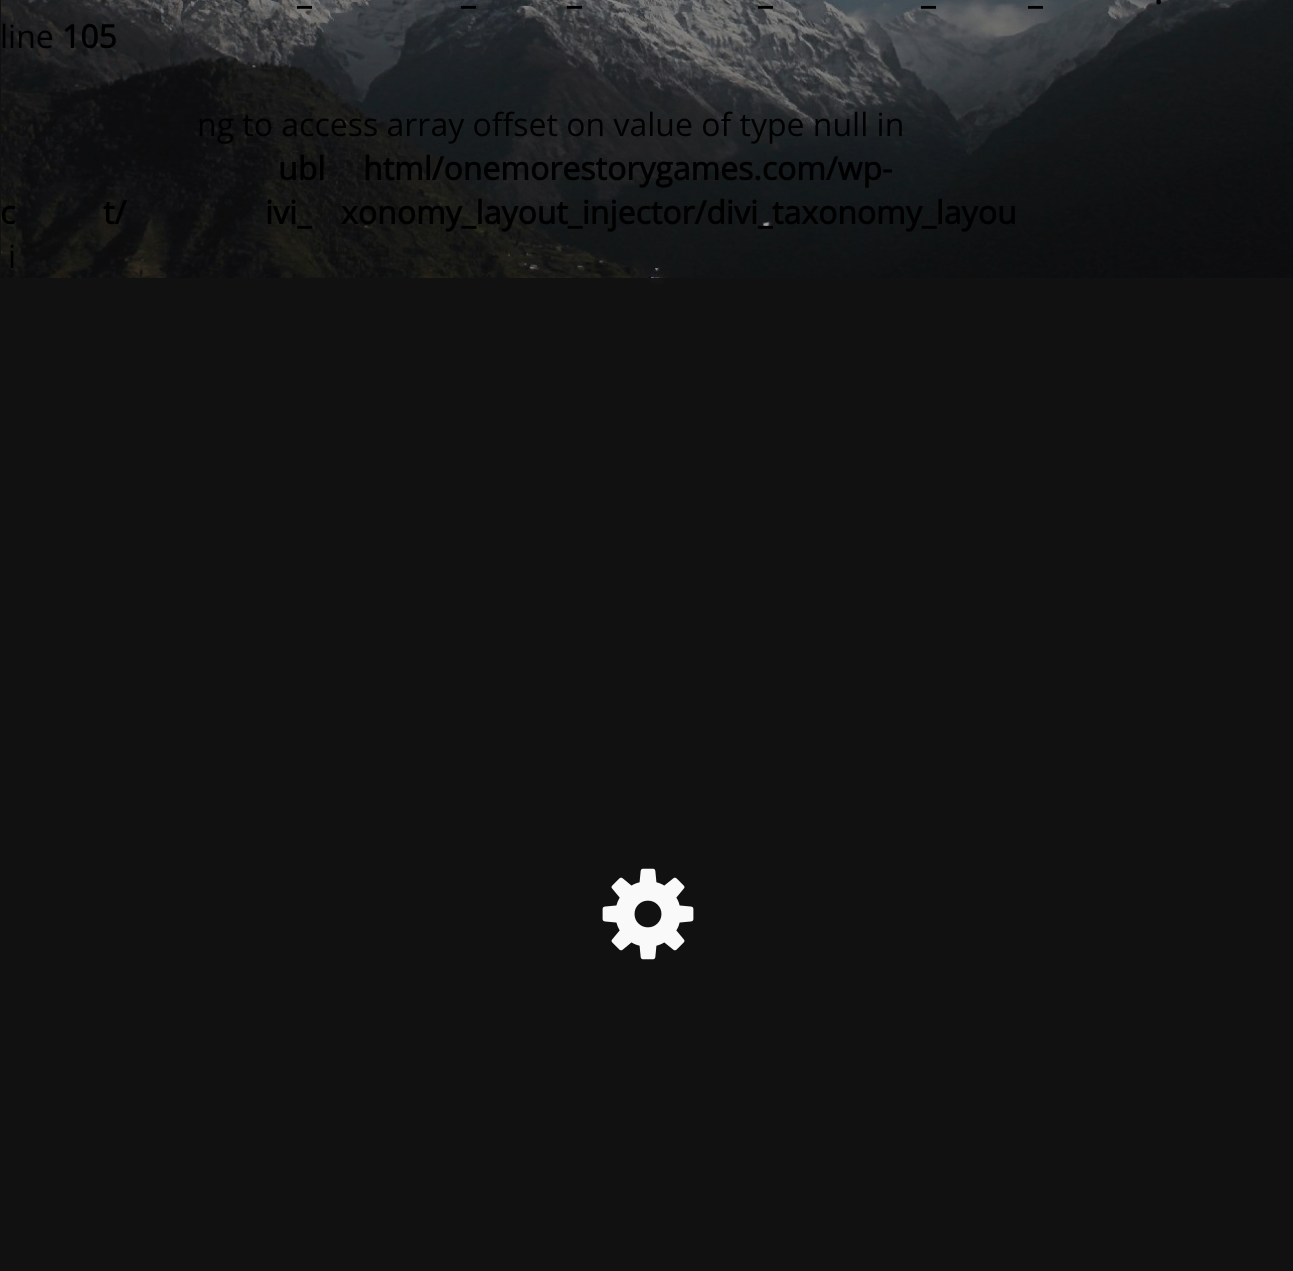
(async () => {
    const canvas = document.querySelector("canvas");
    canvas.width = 1293;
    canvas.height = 1271;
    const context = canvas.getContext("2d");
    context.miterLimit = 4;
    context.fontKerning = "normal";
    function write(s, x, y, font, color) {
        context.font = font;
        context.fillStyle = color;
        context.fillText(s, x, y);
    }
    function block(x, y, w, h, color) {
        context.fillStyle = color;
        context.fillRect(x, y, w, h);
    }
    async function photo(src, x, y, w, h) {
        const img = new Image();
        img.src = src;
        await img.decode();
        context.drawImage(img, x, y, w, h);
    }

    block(0, 0, 1293, 1271, "rgb(17, 17, 17)");
    await photo("media/1.png", 1, 0, 1292, 450);
    block(1, 278, 1292, 172, "rgba(17, 17, 17, 0.98)");
    await photo("media/2.png", 602, 868, 92, 92);
    write(".", 1154, 4, "bold 32px Open Sans", "rgb(0, 0, 0)");
    write("_", 297, 4, "bold 32px Open Sans", "rgb(0, 0, 0)");
    write("_", 461, 4, "bold 32px Open Sans", "rgb(0, 0, 0)");
    write("_", 567, 4, "bold 32px Open Sans", "rgb(0, 0, 0)");
    write("_", 758, 4, "bold 32px Open Sans", "rgb(0, 0, 0)");
    write("_", 921, 4, "bold 32px Open Sans", "rgb(0, 0, 0)");
    write("_", 1028, 4, "bold 32px Open Sans", "rgb(0, 0, 0)");
    write("line", 0, 48, "32px Open Sans", "rgb(0, 0, 0)");
    write("105", 62, 48, "bold 32px Open Sans", "rgb(0, 0, 0)");
    write("ng to access array offset on value of type null in", 197, 136, "32px Open Sans", "rgb(0, 0, 0)");
    write("ubl", 278, 180, "bold 32px Open Sans", "rgb(0, 0, 0)");
    write("html/onemorestorygames.com/wp-", 363, 180, "bold 32px Open Sans", "rgb(0, 0, 0)");
    write("c", 0, 224, "bold 32px Open Sans", "rgb(0, 0, 0)");
    write("t/", 103, 224, "bold 32px Open Sans", "rgb(0, 0, 0)");
    write("ivi_", 265, 224, "bold 32px Open Sans", "rgb(0, 0, 0)");
    write("xonomy_layout_injector/divi_taxonomy_layou", 341, 224, "bold 32px Open Sans", "rgb(0, 0, 0)");
    write("i", 8, 268, "32px Open Sans", "rgb(0, 0, 0)");
})();
